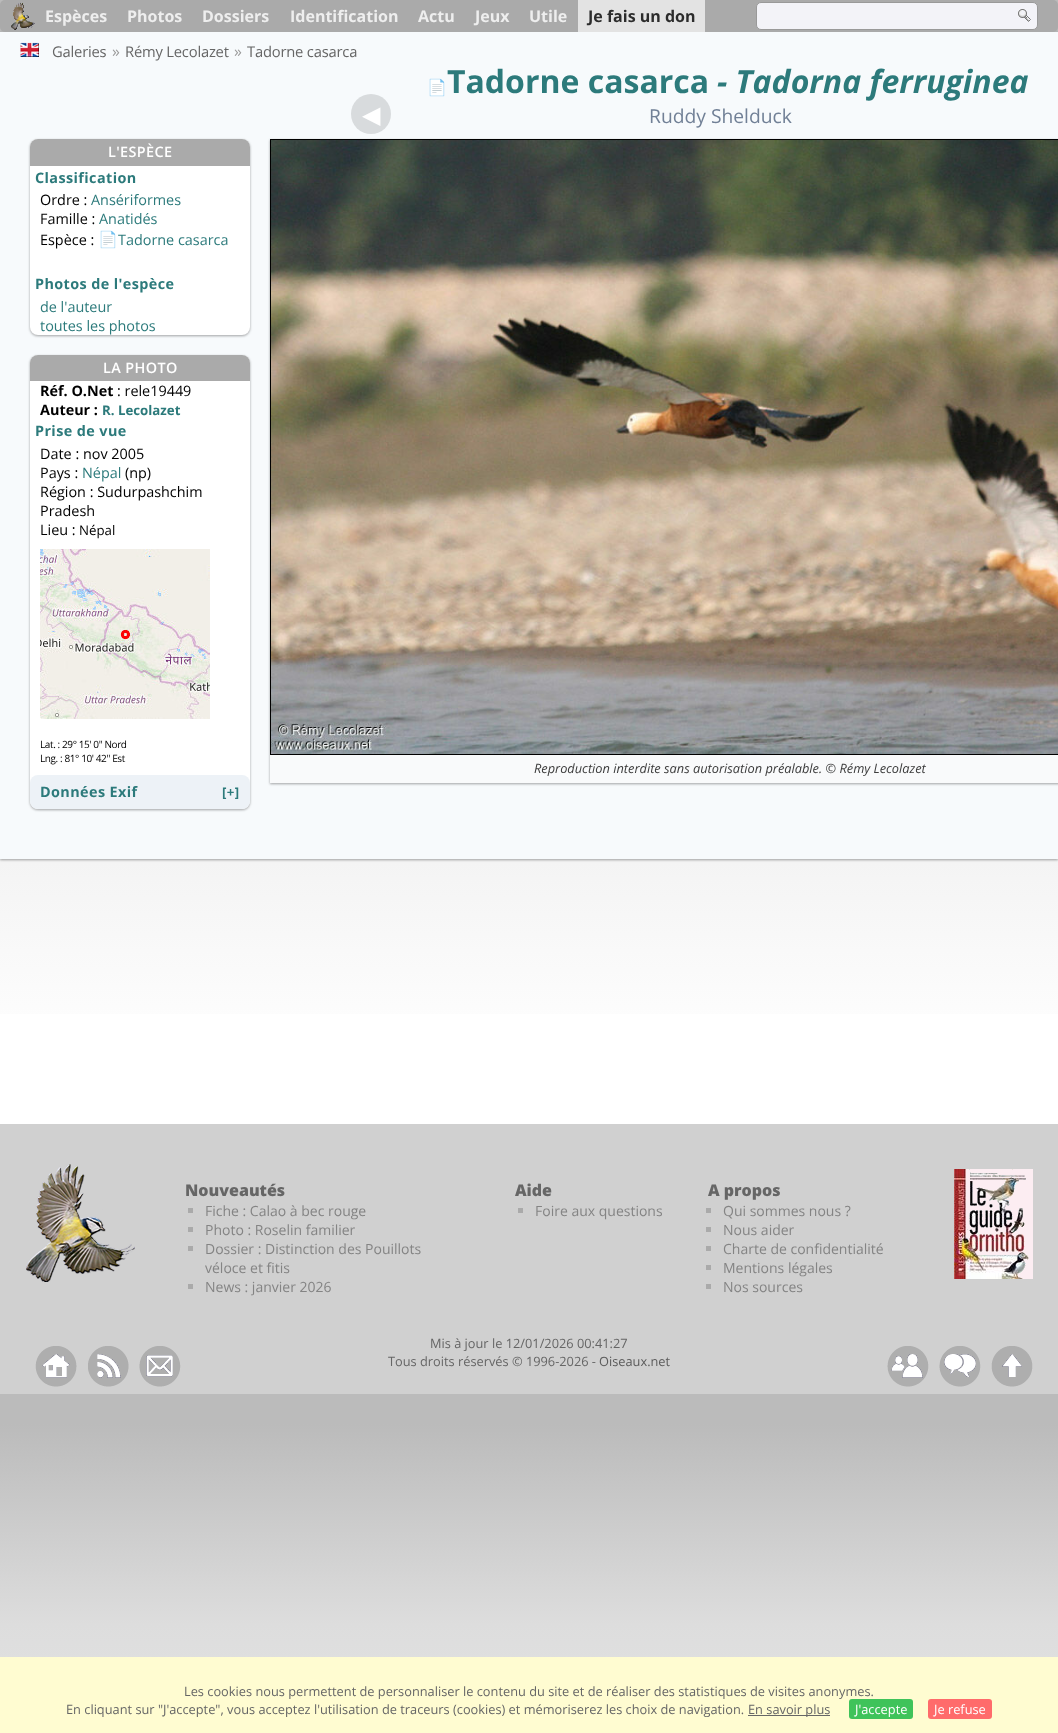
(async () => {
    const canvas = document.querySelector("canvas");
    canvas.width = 1058;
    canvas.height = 1733;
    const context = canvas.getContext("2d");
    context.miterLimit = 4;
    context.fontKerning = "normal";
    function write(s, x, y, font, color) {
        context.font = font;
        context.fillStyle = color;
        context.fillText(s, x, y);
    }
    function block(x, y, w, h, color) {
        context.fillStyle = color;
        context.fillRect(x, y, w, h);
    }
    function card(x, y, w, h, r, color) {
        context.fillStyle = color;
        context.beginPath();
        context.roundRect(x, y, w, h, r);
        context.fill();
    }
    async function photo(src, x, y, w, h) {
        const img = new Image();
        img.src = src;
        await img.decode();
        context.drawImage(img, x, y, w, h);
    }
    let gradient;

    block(0, 0, 1058, 1733, "rgb(255, 255, 255)");
    gradient = context.createLinearGradient(529, 0, 529, 1177);
    gradient.addColorStop(0, "rgb(187, 187, 187)");
    gradient.addColorStop(0.21, "rgb(187, 187, 187)");
    gradient.addColorStop(0.38, "rgb(221, 221, 221)");
    gradient.addColorStop(0.9, "rgb(255, 255, 255)");
    gradient.addColorStop(1, "rgb(255, 255, 255)");
    context.fillStyle = gradient;
    context.fillRect(0, 0, 1058, 1014);
    gradient = context.createLinearGradient(529, 1177, 529, 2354);
    gradient.addColorStop(0, "rgb(187, 187, 187)");
    gradient.addColorStop(0.21, "rgb(187, 187, 187)");
    gradient.addColorStop(0.38, "rgb(221, 221, 221)");
    gradient.addColorStop(0.9, "rgb(255, 255, 255)");
    gradient.addColorStop(1, "rgb(255, 255, 255)");
    context.fillStyle = gradient;
    context.fillRect(0, 1394, 1058, 263);
    context.fillStyle = "rgba(0, 0, 0, 0.24)";
    context.filter = "blur(1px)";
    context.beginPath();
    context.rect(0, 33, 1058, 827);
    context.fill();
    context.filter = "none";
    context.fillStyle = "rgba(0, 0, 0, 0.12)";
    context.filter = "blur(1.5px)";
    context.beginPath();
    context.rect(0, 33, 1058, 827);
    context.fill();
    context.filter = "none";
    card(0, 0, 1058, 32, 5, "rgb(170, 170, 170)");
    await photo("media/1.png", 11, 2, 24, 28);
    write("Espèces", 45, 22, "bold 16px Open Sans", "rgb(238, 238, 238)");
    write("Photos", 127, 22, "bold 16px Open Sans", "rgb(238, 238, 238)");
    write("Dossiers", 202, 22, "bold 16px Open Sans", "rgb(238, 238, 238)");
    write("Identification", 290, 22, "bold 16px Open Sans", "rgb(238, 238, 238)");
    write("Actu", 418, 22, "bold 16px Open Sans", "rgb(238, 238, 238)");
    write("Jeux", 475, 22, "bold 16px Open Sans", "rgb(238, 238, 238)");
    write("Utile", 529, 22, "bold 16px Open Sans", "rgb(238, 238, 238)");
    block(578, 0, 127, 32, "rgb(227, 227, 227)");
    write("Je fais un don", 588, 22, "bold 16px Open Sans", "rgb(44, 44, 44)");
    context.fillStyle = "rgb(243, 243, 248)";
    context.beginPath();
    context.roundRect(756.5, 2.5, 281, 27, 4.5);
    context.fill();
    context.strokeStyle = "rgb(153, 153, 153)";
    context.stroke();
    await photo("media/2.png", 1018, 9, 13, 13);
    block(0, 32, 1058, 827, "rgb(247, 250, 252)");
    await photo("media/3.png", 20, 42, 19, 15);
    context.letterSpacing = "-0.2px";
    write("Galeries", 52, 57, "14.75px Open Sans", "rgb(102, 102, 102)");
    context.letterSpacing = "0px";
    write("»", 112, 57, "16px Open Sans", "rgb(153, 153, 153)");
    context.letterSpacing = "-0.2px";
    write("Rémy Lecolazet", 125, 57, "14.75px Open Sans", "rgb(102, 102, 102)");
    context.letterSpacing = "0px";
    write("»", 234, 57, "16px Open Sans", "rgb(153, 153, 153)");
    context.letterSpacing = "-0.2px";
    write("Tadorne casarca", 247, 57, "14.75px Open Sans", "rgb(102, 102, 102)");
    context.letterSpacing = "0px";
    write("📄", 427, 93, "bold 16px Noto Color Emoji", "rgb(44, 122, 123)");
    write("Tadorne casarca", 447, 93, "bold 32px Open Sans", "rgb(44, 122, 123)");
    write("- Tadorna ferruginea", 717, 93, "italic bold 32px Open Sans", "rgb(44, 122, 123)");
    write("Ruddy Shelduck", 649, 123, "19.25px Open Sans", "rgb(113, 128, 150)");
    context.fillStyle = "rgba(0, 0, 0, 0.24)";
    context.filter = "blur(1px)";
    context.beginPath();
    context.roundRect(30, 140, 220, 196, 8);
    context.fill();
    context.filter = "none";
    context.fillStyle = "rgba(0, 0, 0, 0.12)";
    context.filter = "blur(1.5px)";
    context.beginPath();
    context.roundRect(30, 140, 220, 196, 8);
    context.fill();
    context.filter = "none";
    card(30, 139, 220, 196, 8, "rgb(255, 255, 255)");
    context.fillStyle = "rgb(170, 170, 170)";
    context.beginPath();
    context.roundRect(30, 139, 220, 27, [8, 8, 0, 0]);
    context.fill();
    context.letterSpacing = "0.4px";
    write("L'ESPÈCE", 108, 157, "600 14.4px Open Sans", "rgb(255, 255, 255)");
    write("Classification", 35, 183, "bold 14.4px Open Sans", "rgb(44, 122, 123)");
    context.letterSpacing = "0px";
    write("Ordre :", 40, 205, "14.4px Open Sans", "rgb(0, 0, 0)");
    write("Ansériformes", 91, 205, "14.4px Open Sans", "rgb(44, 122, 123)");
    write("Famille :", 40, 224, "14.4px Open Sans", "rgb(0, 0, 0)");
    write("Anatidés", 99, 224, "14.4px Open Sans", "rgb(44, 122, 123)");
    write("Espèce :", 40, 245, "14.4px Open Sans", "rgb(0, 0, 0)");
    write("📄", 98, 245, "16px Noto Color Emoji", "rgb(44, 122, 123)");
    write("Tadorne casarca", 118, 245, "14.4px Open Sans", "rgb(44, 122, 123)");
    context.letterSpacing = "0.4px";
    write("Photos de l'espèce", 35, 289, "bold 14.4px Open Sans", "rgb(44, 122, 123)");
    context.letterSpacing = "0px";
    write("de l'auteur", 40, 312, "14.4px Open Sans", "rgb(44, 122, 123)");
    write("toutes les photos", 40, 331, "14.4px Open Sans", "rgb(44, 122, 123)");
    context.fillStyle = "rgba(0, 0, 0, 0.24)";
    context.filter = "blur(1px)";
    context.beginPath();
    context.roundRect(30, 356, 220, 454, 8);
    context.fill();
    context.filter = "none";
    context.fillStyle = "rgba(0, 0, 0, 0.12)";
    context.filter = "blur(1.5px)";
    context.beginPath();
    context.roundRect(30, 356, 220, 454, 8);
    context.fill();
    context.filter = "none";
    card(30, 355, 220, 454, 8, "rgb(255, 255, 255)");
    context.fillStyle = "rgb(170, 170, 170)";
    context.beginPath();
    context.roundRect(30, 355, 220, 26, [8, 8, 0, 0]);
    context.fill();
    context.letterSpacing = "0.4px";
    write("LA PHOTO", 103, 373, "600 14.4px Open Sans", "rgb(255, 255, 255)");
    context.letterSpacing = "0px";
    write("Réf. O.Net", 40, 396, "bold 14.4px Open Sans", "rgb(0, 0, 0)");
    write(": rele19449", 117, 396, "14.4px Open Sans", "rgb(0, 0, 0)");
    write("Auteur :", 40, 415, "bold 14.4px Open Sans", "rgb(0, 0, 0)");
    write("R. Lecolazet", 102, 415, "bold 13.25px Open Sans", "rgb(44, 122, 123)");
    context.letterSpacing = "0.4px";
    write("Prise de vue", 35, 436, "bold 14.4px Open Sans", "rgb(44, 122, 123)");
    context.letterSpacing = "0px";
    write("Date : nov 2005", 40, 459, "14.4px Open Sans", "rgb(0, 0, 0)");
    write("Pays :", 40, 478, "14.4px Open Sans", "rgb(0, 0, 0)");
    write("Népal", 82, 478, "14.4px Open Sans", "rgb(44, 122, 123)");
    write("(np)", 125, 478, "14.4px Open Sans", "rgb(0, 0, 0)");
    write("Région : Sudurpashchim", 40, 497, "14.4px Open Sans", "rgb(0, 0, 0)");
    write("Pradesh", 40, 516, "14.4px Open Sans", "rgb(0, 0, 0)");
    write("Lieu :", 40, 535, "14.4px Open Sans", "rgb(0, 0, 0)");
    write("Népal", 79, 535, "13.25px Open Sans", "rgb(0, 0, 0)");
    await photo("media/4.png", 40, 549, 170, 170);
    context.letterSpacing = "-0.4px";
    write("Lat. : 29° 15' 0'' Nord", 40, 748, "10px Open Sans", "rgb(0, 0, 0)");
    write("Lng. : 81° 10' 42'' Est", 40, 762, "10px Open Sans", "rgb(0, 0, 0)");
    card(30, 775, 220, 34, 8, "rgb(237, 242, 247)");
    context.letterSpacing = "0.4px";
    write("Données Exif", 40, 797, "bold 14.4px Open Sans", "rgb(44, 122, 123)");
    write("[+]", 222, 797, "bold 13.25px Open Sans", "rgb(44, 122, 123)");
    context.fillStyle = "rgb(216, 219, 221)";
    context.beginPath();
    context.arc(371, 114, 20, 0, Math.PI * 2);
    context.fill();
    context.letterSpacing = "0px";
    write("◀", 362, 123, "24px DejaVu Sans", "rgb(255, 255, 255)");
    context.fillStyle = "rgba(0, 0, 0, 0.24)";
    context.filter = "blur(1px)";
    context.beginPath();
    context.rect(270, 140, 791, 644);
    context.fill();
    context.filter = "none";
    context.fillStyle = "rgba(0, 0, 0, 0.12)";
    context.filter = "blur(1.5px)";
    context.beginPath();
    context.rect(270, 140, 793, 644);
    context.fill();
    context.filter = "none";
    context.strokeStyle = "rgb(0, 0, 0)";
    context.strokeRect(270.5, 139.5, 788, 615);
    await photo("media/5.png", 271, 140, 787, 614);
    block(270, 755, 788, 28, "rgb(249, 250, 251)");
    write("Reproduction interdite sans autorisation préalable. © Rémy Lecolazet", 534, 773, "italic 12.8px Open Sans", "rgb(61, 61, 61)");
    block(0, 1124, 1058, 270, "rgb(208, 208, 208)");
    await photo("media/6.png", 26, 1164, 109, 118);
    write("Nouveautés", 185, 1196, "800 16px Open Sans", "rgb(102, 102, 102)");
    block(188, 1208, 5, 5, "rgb(170, 170, 170)");
    write("Fiche : Calao à bec rouge", 205, 1216, "14px Open Sans", "rgb(132, 132, 132)");
    block(188, 1227, 5, 5, "rgb(170, 170, 170)");
    write("Photo : Roselin familier", 205, 1235, "14px Open Sans", "rgb(132, 132, 132)");
    block(188, 1246, 5, 5, "rgb(170, 170, 170)");
    write("Dossier : Distinction des Pouillots", 205, 1254, "14px Open Sans", "rgb(132, 132, 132)");
    write("véloce et fitis", 205, 1273, "14px Open Sans", "rgb(132, 132, 132)");
    block(188, 1284, 5, 5, "rgb(170, 170, 170)");
    write("News : janvier 2026", 205, 1292, "14px Open Sans", "rgb(132, 132, 132)");
    write("Aide", 515, 1196, "800 16px Open Sans", "rgb(102, 102, 102)");
    block(518, 1208, 5, 5, "rgb(170, 170, 170)");
    write("Foire aux questions", 535, 1216, "14px Open Sans", "rgb(132, 132, 132)");
    write("A propos", 708, 1196, "800 16px Open Sans", "rgb(102, 102, 102)");
    block(706, 1208, 5, 5, "rgb(170, 170, 170)");
    write("Qui sommes nous ?", 723, 1216, "14px Open Sans", "rgb(132, 132, 132)");
    block(706, 1227, 5, 5, "rgb(170, 170, 170)");
    write("Nous aider", 723, 1235, "14px Open Sans", "rgb(132, 132, 132)");
    block(706, 1246, 5, 5, "rgb(170, 170, 170)");
    write("Charte de confidentialité", 723, 1254, "14px Open Sans", "rgb(132, 132, 132)");
    block(706, 1265, 5, 5, "rgb(170, 170, 170)");
    write("Mentions légales", 723, 1273, "14px Open Sans", "rgb(132, 132, 132)");
    block(706, 1284, 5, 5, "rgb(170, 170, 170)");
    write("Nos sources", 723, 1292, "14px Open Sans", "rgb(132, 132, 132)");
    await photo("media/7.png", 954, 1169, 79, 110);
    await photo("media/8.png", 35, 1346, 42, 41);
    await photo("media/9.png", 88, 1346, 41, 41);
    await photo("media/10.png", 139, 1346, 42, 41);
    write("Mis à jour le 12/01/2026 00:41:27", 430, 1348, "12.8px Open Sans", "rgb(102, 102, 102)");
    write("Tous droits réservés © 1996-2026 -", 388, 1366, "12.8px Open Sans", "rgb(102, 102, 102)");
    write("Oiseaux.net", 599, 1366, "12.8px Open Sans", "rgb(91, 91, 91)");
    await photo("media/11.png", 887, 1346, 42, 41);
    await photo("media/12.png", 939, 1346, 42, 41);
    await photo("media/13.png", 991, 1346, 42, 41);
    block(0, 1657, 1058, 76, "rgb(255, 252, 209)");
    write("Les cookies nous permettent de personnaliser le contenu du site et de réaliser des statistiques de visites anonymes.", 184, 1696, "12.8px Open Sans", "rgb(102, 102, 102)");
    write("En cliquant sur \"J'accepte\", vous acceptez l'utilisation de traceurs (cookies) et mémoriserez les choix de navigation.", 66, 1714, "12.8px Open Sans", "rgb(102, 102, 102)");
    block(748, 1715, 82, 1, "rgb(102, 102, 102)");
    write("En savoir plus", 748, 1714, "12.8px Open Sans", "rgb(102, 102, 102)");
    card(849, 1699, 64, 20, 3, "rgb(63, 195, 90)");
    write("J'accepte", 855, 1714, "12.8px Open Sans", "rgb(255, 255, 255)");
    card(928, 1699, 64, 20, 3, "rgb(255, 107, 107)");
    write("Je refuse", 934, 1714, "12.8px Open Sans", "rgb(255, 255, 255)");
})();
